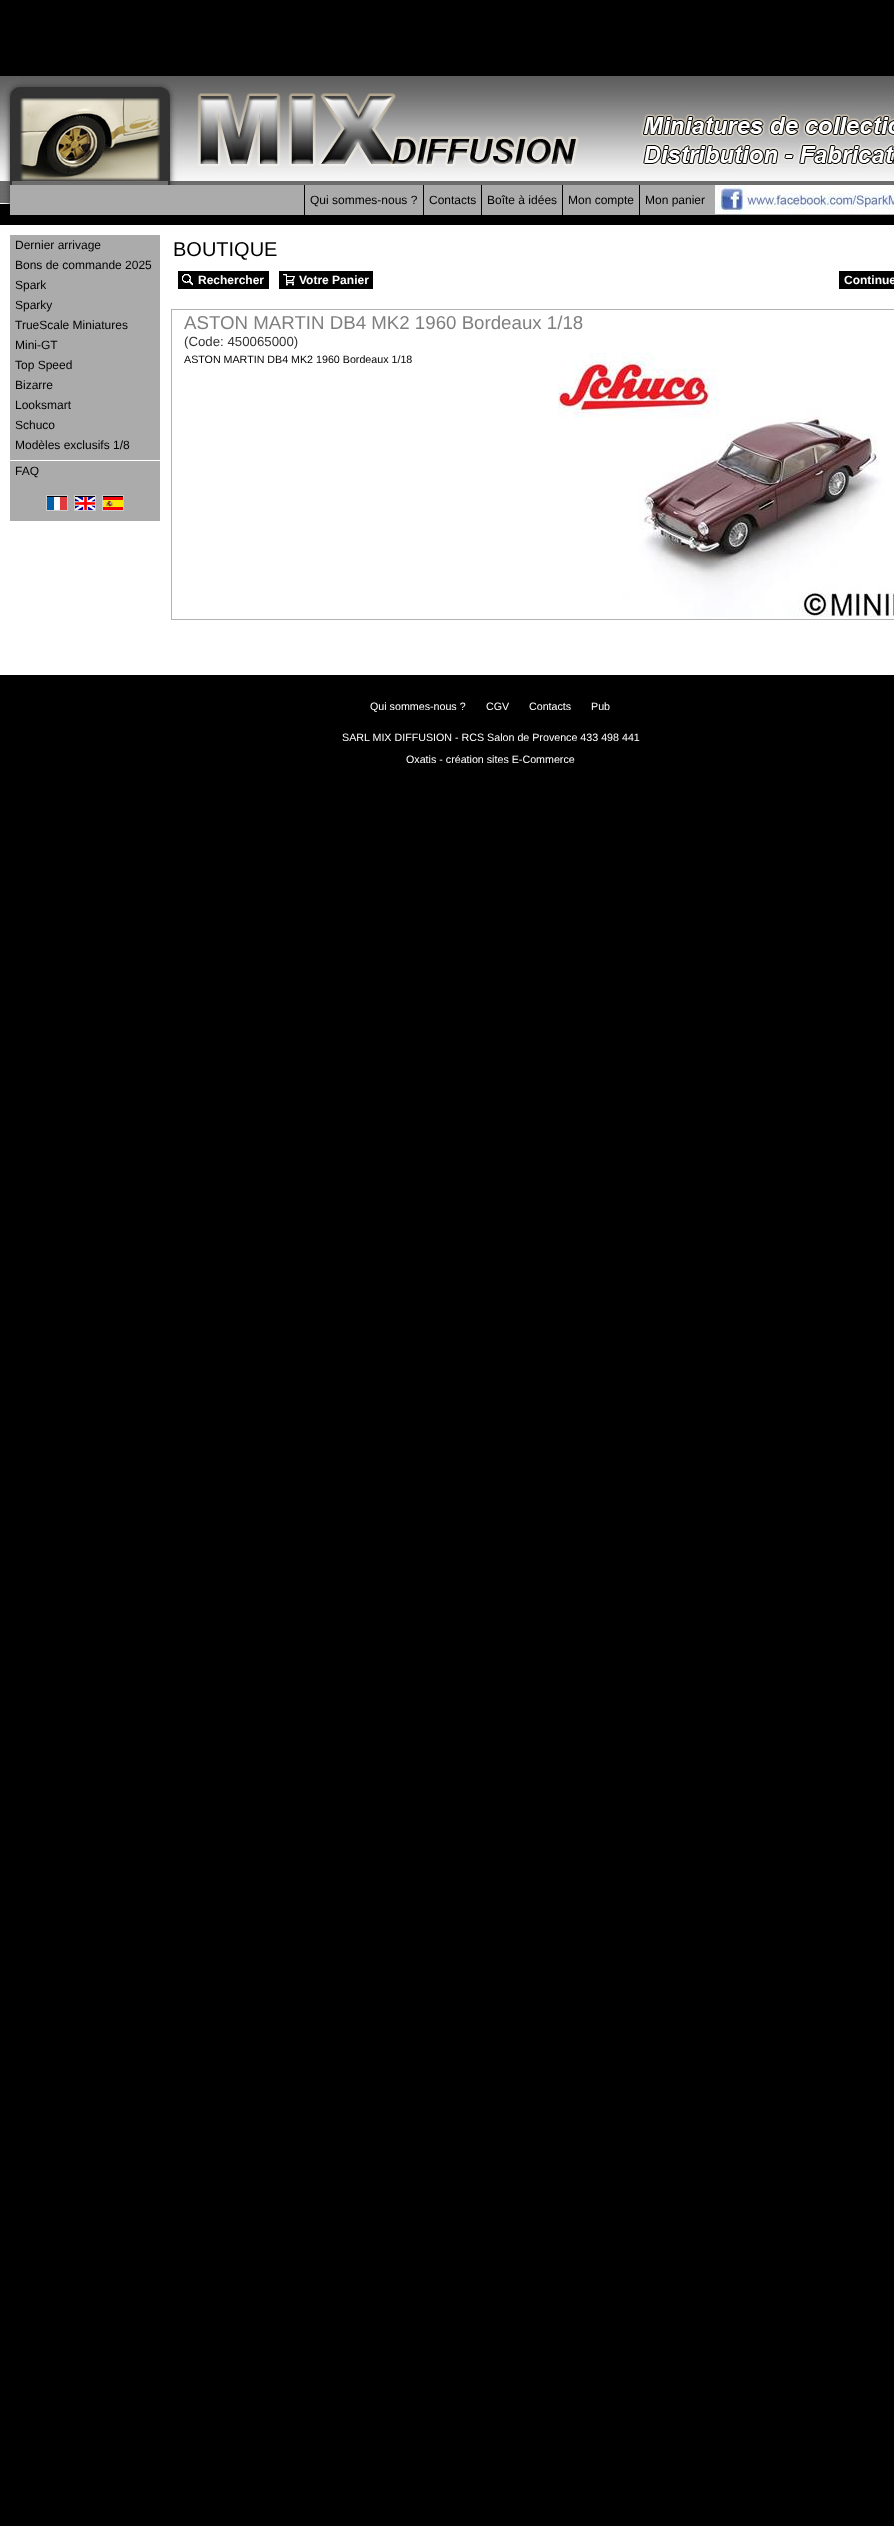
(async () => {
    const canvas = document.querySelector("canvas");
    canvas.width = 894;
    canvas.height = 2526;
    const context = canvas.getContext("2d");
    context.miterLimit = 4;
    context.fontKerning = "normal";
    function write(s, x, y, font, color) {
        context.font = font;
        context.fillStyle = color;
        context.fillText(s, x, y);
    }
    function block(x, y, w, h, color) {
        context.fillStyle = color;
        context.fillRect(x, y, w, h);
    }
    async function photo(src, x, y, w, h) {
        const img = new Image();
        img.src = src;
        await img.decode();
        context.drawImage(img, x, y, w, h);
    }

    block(0, 0, 894, 2526, "rgb(0, 0, 0)");
    block(0, 225, 894, 450, "rgb(255, 255, 255)");
    await photo("media/1.png", 0, 76, 894, 128);
    block(10, 185, 884, 30, "rgb(171, 171, 171)");
    block(304, 185, 1, 30, "rgb(0, 0, 0)");
    write("Qui sommes-nous ?", 310, 204, "12px Liberation Sans", "rgb(0, 0, 0)");
    block(423, 185, 1, 30, "rgb(0, 0, 0)");
    write("Contacts", 429, 204, "12px Liberation Sans", "rgb(0, 0, 0)");
    block(481, 185, 1, 30, "rgb(0, 0, 0)");
    write("Boîte à idées", 487, 204, "12px Liberation Sans", "rgb(0, 0, 0)");
    block(562, 185, 1, 30, "rgb(0, 0, 0)");
    write("Mon compte", 568, 204, "12px Liberation Sans", "rgb(0, 0, 0)");
    block(639, 185, 1, 30, "rgb(0, 0, 0)");
    write("Mon panier", 645, 204, "12px Liberation Sans", "rgb(0, 0, 0)");
    await photo("media/2.png", 715, 185, 179, 29);
    block(10, 235, 150, 286, "rgb(171, 171, 171)");
    write("Dernier arrivage", 15, 249, "12px Liberation Sans", "rgb(0, 0, 0)");
    write("Bons de commande 2025", 15, 269, "12px Liberation Sans", "rgb(0, 0, 0)");
    write("Spark", 15, 289, "12px Liberation Sans", "rgb(0, 0, 0)");
    write("Sparky", 15, 309, "12px Liberation Sans", "rgb(0, 0, 0)");
    write("TrueScale Miniatures", 15, 329, "12px Liberation Sans", "rgb(0, 0, 0)");
    write("Mini-GT", 15, 349, "12px Liberation Sans", "rgb(0, 0, 0)");
    write("Top Speed", 15, 369, "12px Liberation Sans", "rgb(0, 0, 0)");
    write("Bizarre", 15, 389, "12px Liberation Sans", "rgb(0, 0, 0)");
    write("Looksmart", 15, 409, "12px Liberation Sans", "rgb(0, 0, 0)");
    write("Schuco", 15, 429, "12px Liberation Sans", "rgb(0, 0, 0)");
    write("Modèles exclusifs 1/8", 15, 449, "12px Liberation Sans", "rgb(0, 0, 0)");
    block(10, 460, 150, 1, "rgb(255, 255, 255)");
    write("FAQ", 15, 475, "12px Liberation Sans", "rgb(0, 0, 0)");
    await photo("media/3.png", 47, 496, 20, 14);
    context.strokeStyle = "rgb(204, 204, 204)";
    context.strokeRect(46.5, 495.5, 21, 15);
    await photo("media/4.png", 75, 496, 20, 14);
    context.strokeRect(74.5, 495.5, 21, 15);
    await photo("media/5.png", 103, 496, 20, 14);
    context.strokeRect(102.5, 495.5, 21, 15);
    write("BOUTIQUE", 173, 256, "20px Liberation Sans", "rgb(0, 0, 0)");
    block(178, 271, 91, 18, "rgb(0, 0, 0)");
    await photo("media/6.png", 182, 274, 11, 12);
    write("Rechercher", 198, 284, "bold 12px Liberation Sans", "rgb(255, 255, 255)");
    block(279, 271, 94, 18, "rgb(0, 0, 0)");
    await photo("media/7.png", 283, 274, 12, 12);
    write("Votre Panier", 299, 284, "bold 12px Liberation Sans", "rgb(255, 255, 255)");
    block(839, 271, 55, 18, "rgb(0, 0, 0)");
    write("Continue", 844, 284, "bold 12px Liberation Sans", "rgb(255, 255, 255)");
    context.strokeStyle = "rgb(178, 178, 178)";
    context.strokeRect(171.5, 309.5, 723, 310);
    write("ASTON MARTIN DB4 MK2 1960 Bordeaux 1/18", 184, 329, "18.7px Liberation Sans", "rgb(127, 127, 127)");
    write("(Code: 450065000)", 184, 346, "13.25px Liberation Sans", "rgb(51, 51, 51)");
    write("ASTON MARTIN DB4 MK2 1960 Bordeaux 1/18", 184, 363, "10.7px Liberation Sans", "rgb(0, 0, 0)");
    await photo("media/8.png", 558, 353, 336, 264);
    write("Qui sommes-nous ?", 370, 710, "10.7px Liberation Sans", "rgb(255, 255, 255)");
    write("CGV", 486, 710, "10.7px Liberation Sans", "rgb(255, 255, 255)");
    write("Contacts", 529, 710, "10.7px Liberation Sans", "rgb(255, 255, 255)");
    write("Pub", 591, 710, "10.7px Liberation Sans", "rgb(255, 255, 255)");
    write("SARL MIX DIFFUSION - RCS Salon de Provence 433 498 441", 342, 741, "10.7px Liberation Sans", "rgb(255, 255, 255)");
    write("Oxatis - création sites E-Commerce", 406, 763, "10.7px Liberation Sans", "rgb(255, 255, 255)");
})();
